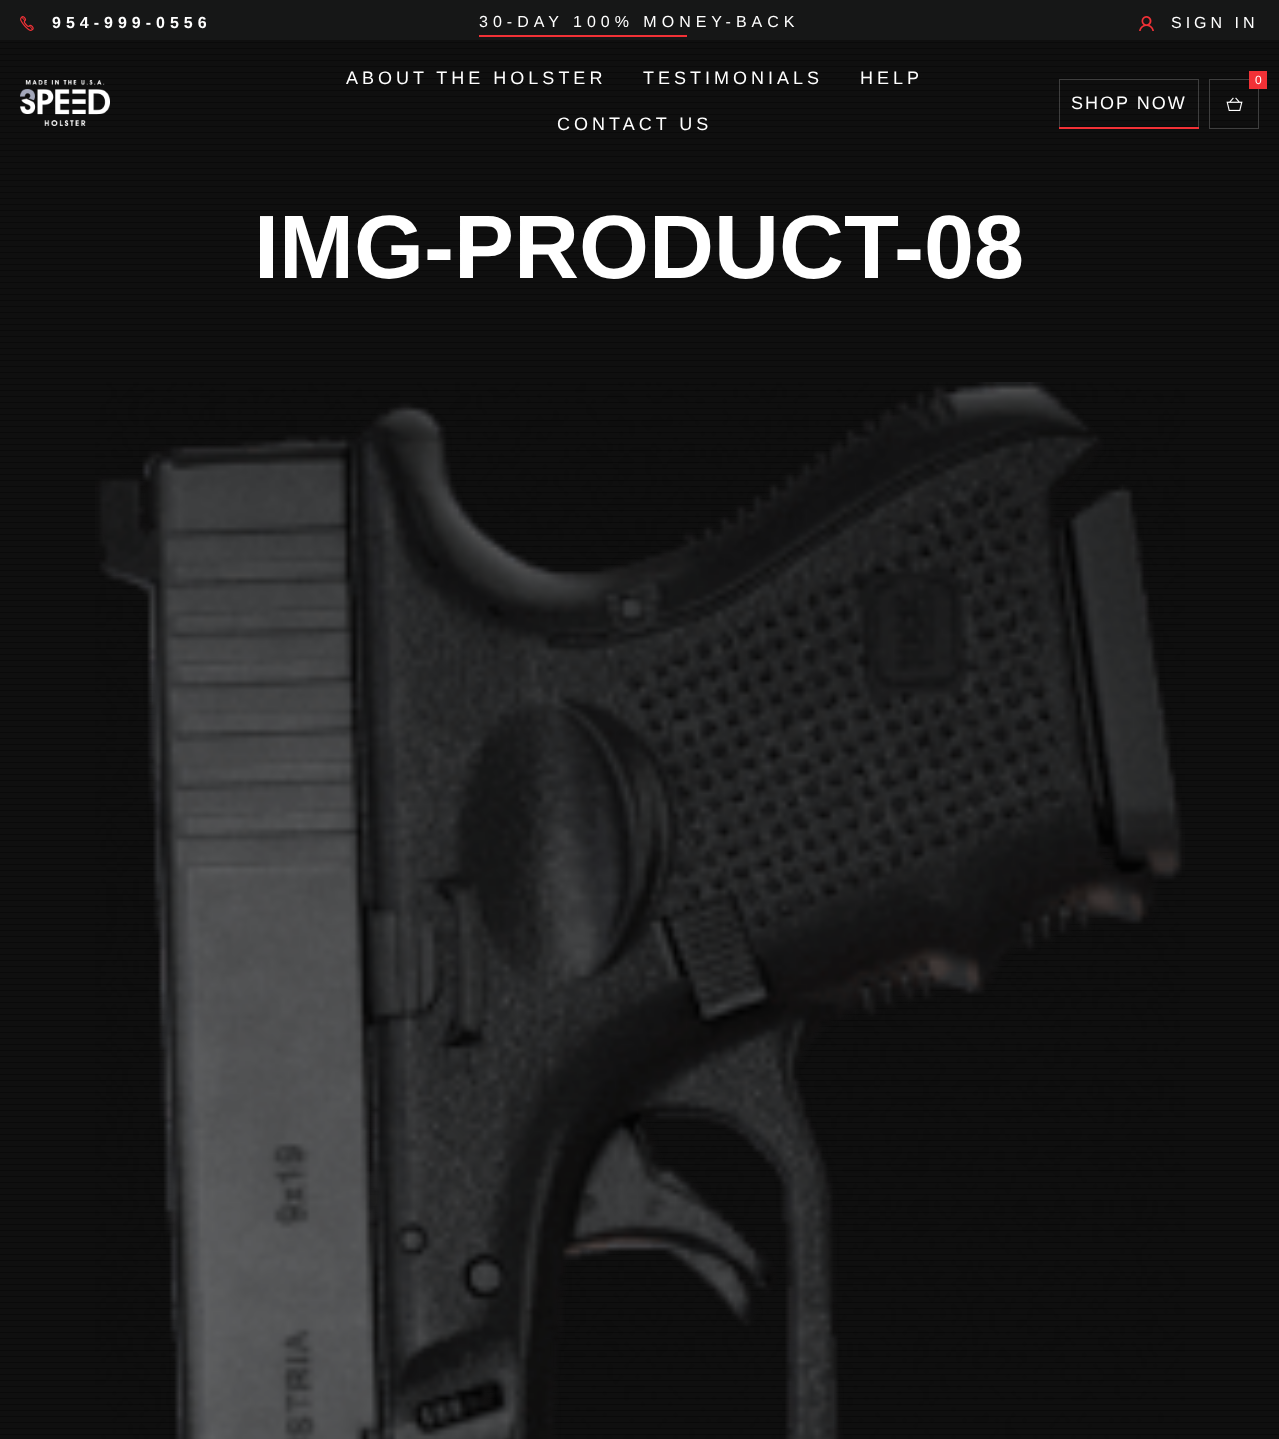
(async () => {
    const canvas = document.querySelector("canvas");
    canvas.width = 1279;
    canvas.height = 1439;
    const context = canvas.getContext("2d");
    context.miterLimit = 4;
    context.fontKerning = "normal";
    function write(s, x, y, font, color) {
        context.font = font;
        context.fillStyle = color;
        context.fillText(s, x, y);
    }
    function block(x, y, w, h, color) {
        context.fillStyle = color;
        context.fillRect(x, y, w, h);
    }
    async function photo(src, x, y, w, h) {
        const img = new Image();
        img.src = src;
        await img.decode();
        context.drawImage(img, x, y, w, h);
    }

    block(0, 0, 1279, 1439, "rgb(15, 15, 15)");
    block(0, 0, 1279, 40, "rgb(22, 23, 23)");
    context.letterSpacing = "5px";
    write("30-DAY 100% MONEY-BACK", 479, 27, "16px Liberation Sans", "rgb(255, 255, 255)");
    block(479, 35, 208, 2, "rgb(242, 49, 54)");
    await photo("media/1.png", 20, 16, 14, 15);
    write("954-999-0556", 52, 28, "bold 16px Liberation Sans", "rgb(255, 255, 255)");
    await photo("media/2.png", 1139, 16, 15, 15);
    context.letterSpacing = "4px";
    write("SIGN IN", 1171, 28, "16px Liberation Sans", "rgb(255, 255, 255)");
    await photo("media/6.png", 0, 40, 1279, 1395);
    await photo("media/3.png", 20, 80, 90, 46);
    write("ABOUT THE HOLSTER", 346, 84, "18px Liberation Sans", "rgb(255, 255, 255)");
    write("TESTIMONIALS", 643, 84, "18px Liberation Sans", "rgb(255, 255, 255)");
    write("HELP", 860, 84, "18px Liberation Sans", "rgb(255, 255, 255)");
    write("CONTACT US", 557, 130, "18px Liberation Sans", "rgb(255, 255, 255)");
    await photo("media/4.png", 1226, 97, 17, 14);
    context.strokeStyle = "rgb(63, 63, 63)";
    context.strokeRect(1209.5, 79.5, 49, 49);
    block(1249, 71, 18, 18, "rgb(242, 49, 54)");
    context.letterSpacing = "0px";
    write("0", 1255, 84, "12px Liberation Sans", "rgb(255, 255, 255)");
    context.strokeStyle = "rgba(255, 255, 255, 0.2)";
    context.strokeRect(1059.5, 79.5, 139, 49);
    context.letterSpacing = "2px";
    write("SHOP NOW", 1071, 109, "18px Liberation Sans", "rgb(255, 255, 255)");
    block(1059, 127, 140, 2, "rgb(242, 49, 54)");
    context.letterSpacing = "0px";
    write("IMG-PRODUCT-08", 254, 278, "bold 90px Liberation Sans", "rgb(255, 255, 255)");
    await photo("media/5.png", 95, 382, 1090, 1057);
})();
